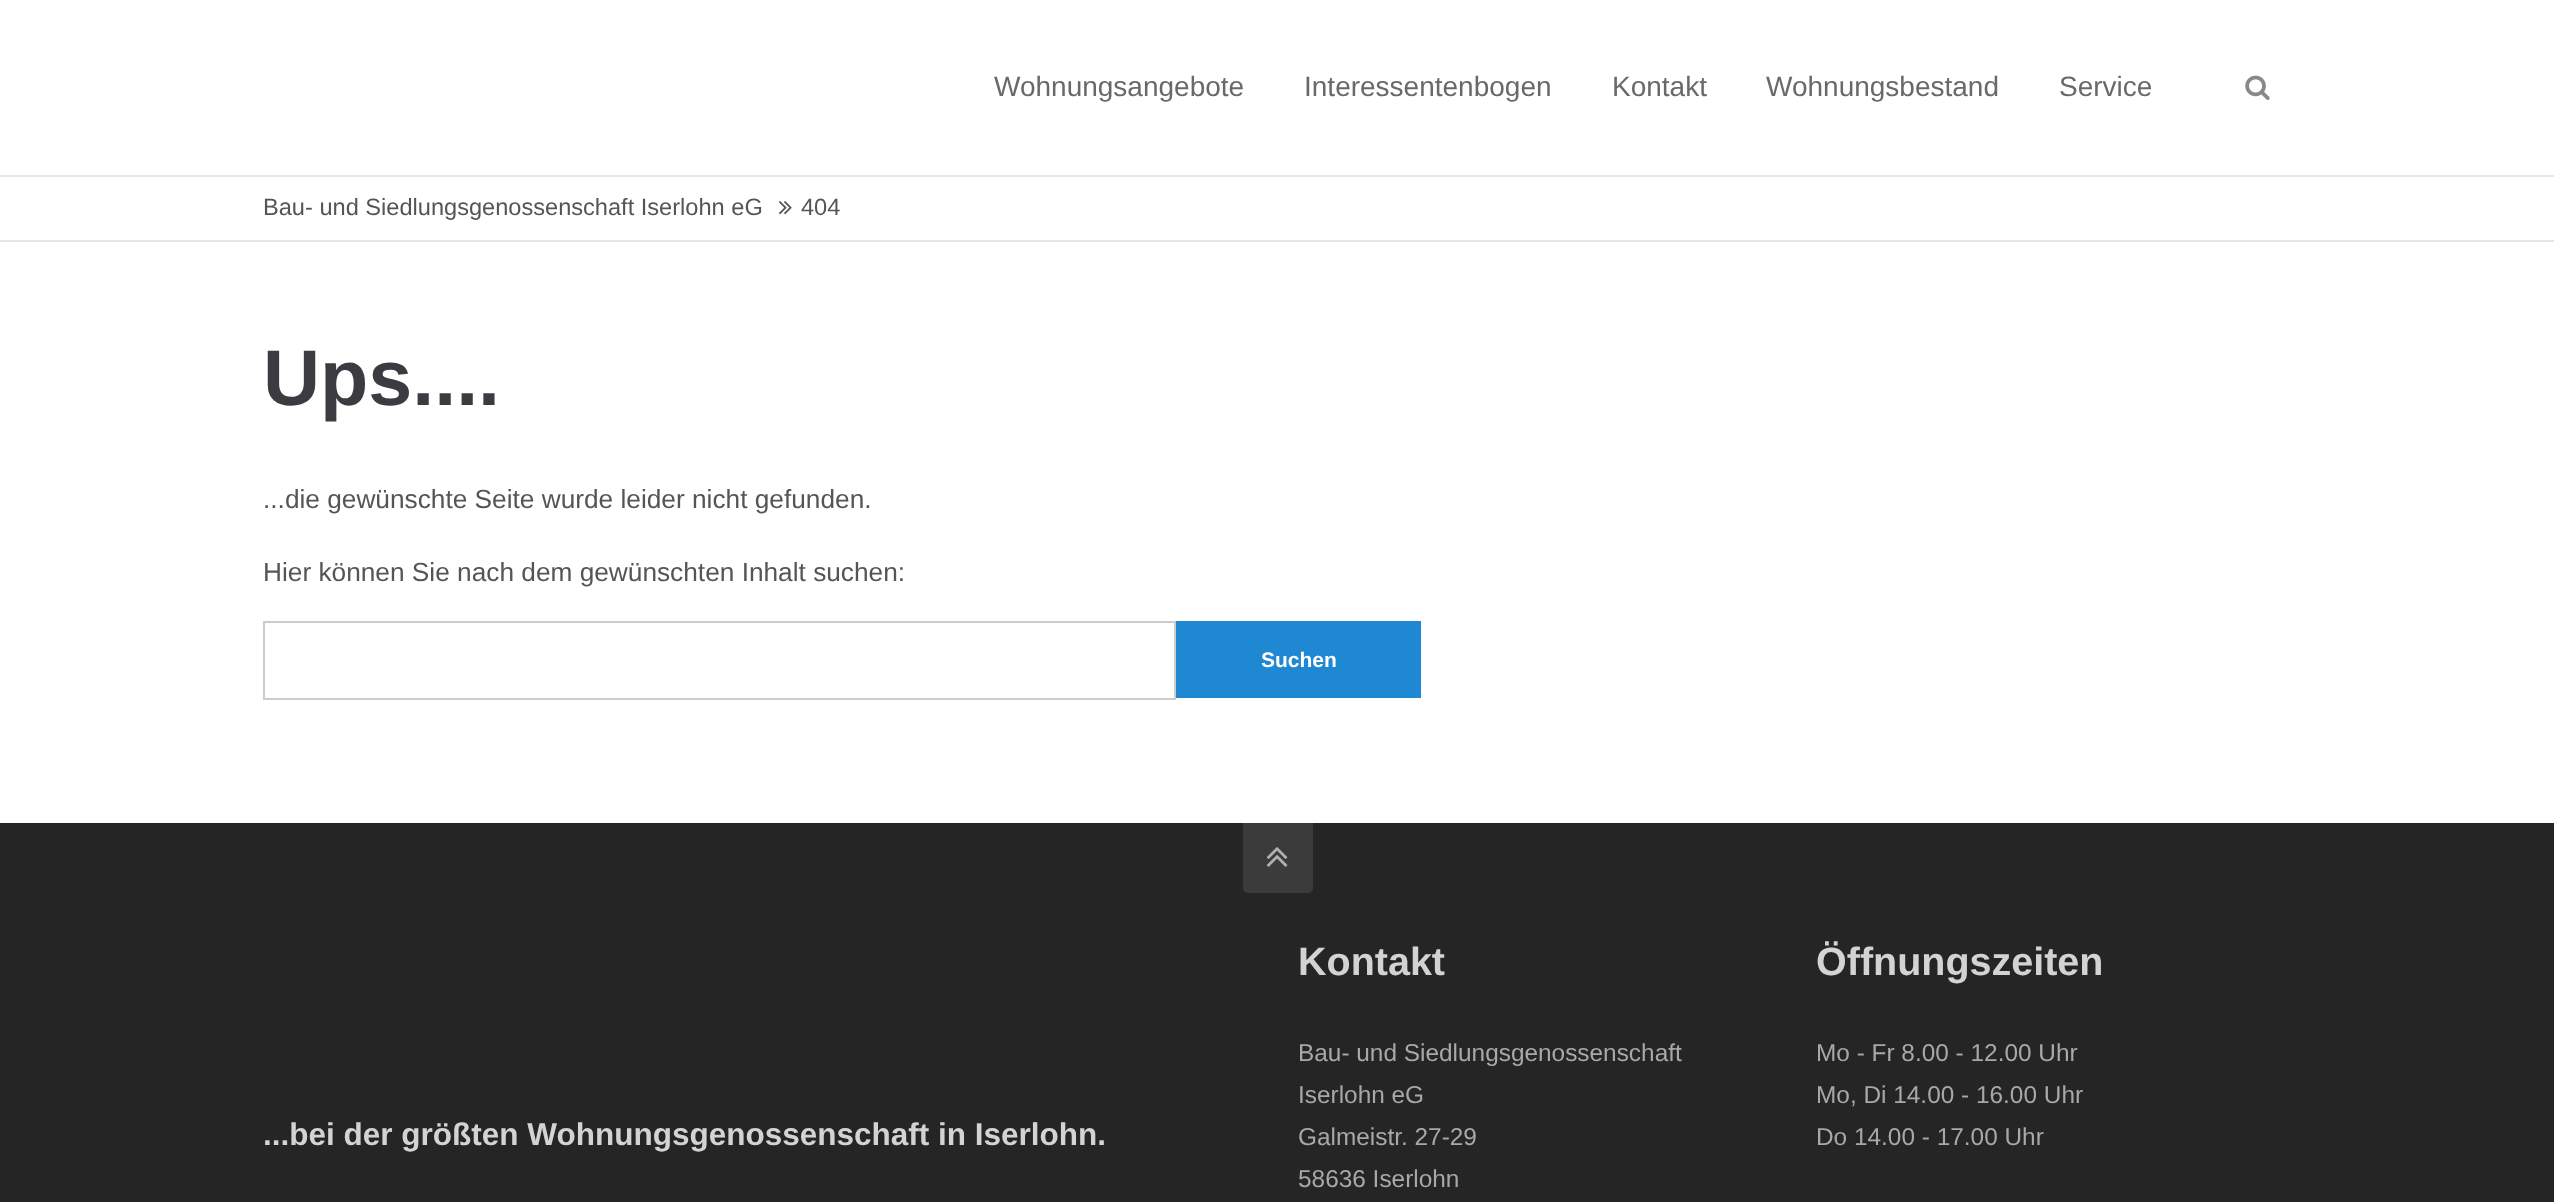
(async () => {
    const canvas = document.querySelector("canvas");
    canvas.width = 2554;
    canvas.height = 1202;
    const context = canvas.getContext("2d");
    context.miterLimit = 4;
    context.fontKerning = "normal";
    function write(s, x, y, font, color) {
        context.font = font;
        context.fillStyle = color;
        context.fillText(s, x, y);
    }
    function block(x, y, w, h, color) {
        context.fillStyle = color;
        context.fillRect(x, y, w, h);
    }
    async function photo(src, x, y, w, h) {
        const img = new Image();
        img.src = src;
        await img.decode();
        context.drawImage(img, x, y, w, h);
    }

    block(0, 0, 2554, 1202, "rgb(255, 255, 255)");
    write("Wohnungsangebote", 994, 96, "28px Liberation Sans", "rgb(105, 105, 105)");
    write("Interessentenbogen", 1304, 96, "28px Liberation Sans", "rgb(105, 105, 105)");
    write("Kontakt", 1612, 96, "28px Liberation Sans", "rgb(105, 105, 105)");
    write("Wohnungsbestand", 1766, 96, "28px Liberation Sans", "rgb(105, 105, 105)");
    write("Service", 2059, 96, "28px Liberation Sans", "rgb(105, 105, 105)");
    await photo("media/1.png", 2245, 75, 25, 25);
    block(0, 175, 2554, 2, "rgb(230, 230, 230)");
    block(0, 240, 2554, 2, "rgb(230, 230, 230)");
    write("Bau- und Siedlungsgenossenschaft Iserlohn eG", 263, 215, "23.6px Liberation Sans", "rgb(85, 85, 85)");
    await photo("media/2.png", 779, 201, 13, 14);
    write("404", 801, 215, "23.6px Liberation Sans", "rgb(85, 85, 85)");
    write("Ups....", 263, 405, "bold 79px Liberation Sans", "rgb(59, 60, 66)");
    write("...die gewünschte Seite wurde leider nicht gefunden.", 263, 508, "26.25px Liberation Sans", "rgb(85, 85, 85)");
    write("Hier können Sie nach dem gewünschten Inhalt suchen:", 263, 581, "26.25px Liberation Sans", "rgb(85, 85, 85)");
    context.strokeStyle = "rgb(204, 204, 204)";
    context.lineWidth = 2;
    context.strokeRect(264, 622, 911, 77);
    block(1176, 621, 245, 77, "rgb(30, 136, 210)");
    write("Suchen", 1261, 667, "bold 21px Liberation Sans", "rgb(255, 255, 255)");
    block(0, 823, 2554, 379, "rgb(37, 37, 37)");
    context.fillStyle = "rgb(59, 59, 59)";
    context.beginPath();
    context.roundRect(1243, 823, 70, 70, [0, 0, 5, 5]);
    context.fill();
    await photo("media/3.png", 1266, 847, 22, 20);
    write("...bei der größten Wohnungsgenossenschaft in Iserlohn.", 263, 1145, "bold 31.5px Liberation Sans", "rgb(211, 211, 211)");
    write("Kontakt", 1298, 975, "bold 39.5px Liberation Sans", "rgb(211, 211, 211)");
    write("Bau- und Siedlungsgenossenschaft", 1298, 1061, "24.4px Liberation Sans", "rgb(168, 168, 168)");
    write("Iserlohn eG", 1298, 1103, "24.4px Liberation Sans", "rgb(168, 168, 168)");
    write("Galmeistr. 27-29", 1298, 1145, "24.4px Liberation Sans", "rgb(168, 168, 168)");
    write("58636 Iserlohn", 1298, 1187, "24.4px Liberation Sans", "rgb(168, 168, 168)");
    write("Öffnungszeiten", 1816, 975, "bold 39.5px Liberation Sans", "rgb(211, 211, 211)");
    write("Mo - Fr 8.00 - 12.00 Uhr", 1816, 1061, "24.4px Liberation Sans", "rgb(168, 168, 168)");
    write("Mo, Di 14.00 - 16.00 Uhr", 1816, 1103, "24.4px Liberation Sans", "rgb(168, 168, 168)");
    write("Do 14.00 - 17.00 Uhr", 1816, 1145, "24.4px Liberation Sans", "rgb(168, 168, 168)");
})();
